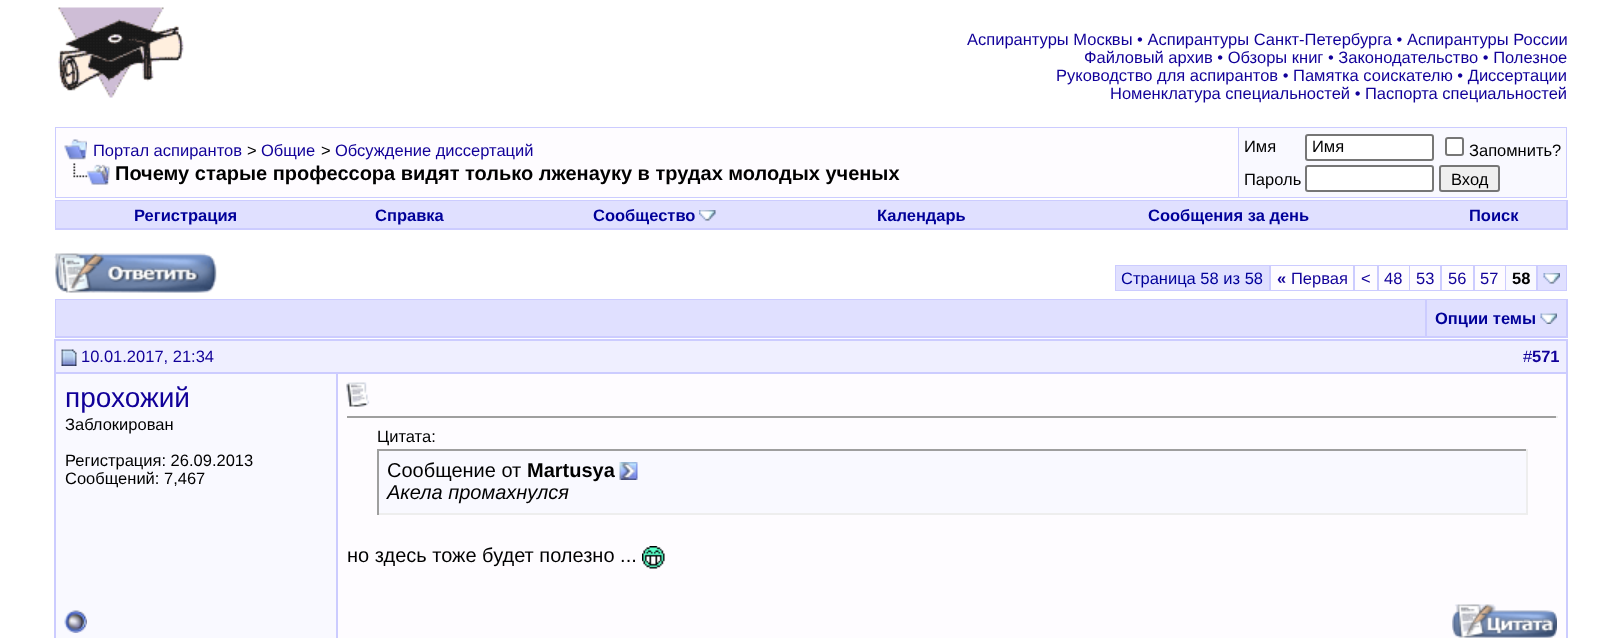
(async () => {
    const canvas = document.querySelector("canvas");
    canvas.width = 1621;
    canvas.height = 638;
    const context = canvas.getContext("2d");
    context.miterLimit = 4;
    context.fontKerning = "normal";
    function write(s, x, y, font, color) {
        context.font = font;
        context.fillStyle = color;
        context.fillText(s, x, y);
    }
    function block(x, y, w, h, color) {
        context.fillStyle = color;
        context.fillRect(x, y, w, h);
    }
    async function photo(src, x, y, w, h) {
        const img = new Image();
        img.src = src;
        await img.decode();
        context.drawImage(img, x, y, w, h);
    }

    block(0, 0, 1621, 638, "rgb(255, 255, 255)");
    await photo("media/1.png", 58, 7, 126, 91);
    write("Аспирантуры Москвы • Аспирантуры Санкт-Петербурга • Аспирантуры России", 967, 45, "16.5px Liberation Sans", "rgb(17, 0, 153)");
    write("Файловый архив • Обзоры книг • Законодательство • Полезное", 1084, 63, "16.5px Liberation Sans", "rgb(17, 0, 153)");
    write("Руководство для аспирантов • Памятка соискателю • Диссертации", 1056, 81, "16.5px Liberation Sans", "rgb(17, 0, 153)");
    write("Номенклатура специальностей • Паспорта специальностей", 1110, 99, "16.5px Liberation Sans", "rgb(17, 0, 153)");
    block(55, 127, 1512, 71, "rgb(204, 204, 255)");
    block(56, 128, 1182, 69, "rgb(254, 252, 255)");
    await photo("media/2.png", 64, 139, 23, 21);
    write("Портал аспирантов", 93, 156, "16.5px Liberation Sans", "rgb(17, 0, 153)");
    write(">", 247, 156, "16.5px Liberation Sans", "rgb(0, 0, 0)");
    write("Общие", 261, 156, "16.5px Liberation Sans", "rgb(17, 0, 153)");
    write(">", 321, 156, "16.5px Liberation Sans", "rgb(0, 0, 0)");
    write("Обсуждение диссертаций", 335, 156, "16.5px Liberation Sans", "rgb(17, 0, 153)");
    await photo("media/3.png", 73, 163, 37, 22);
    write("Почему старые профессора видят только лженауку в трудах молодых ученых", 115, 180, "bold 20px Liberation Sans", "rgb(0, 0, 0)");
    block(1239, 128, 327, 69, "rgb(249, 249, 255)");
    write("Имя", 1244, 152, "16.5px Liberation Sans", "rgb(0, 0, 0)");
    context.fillStyle = "rgb(255, 255, 255)";
    context.beginPath();
    context.roundRect(1306, 135, 127, 25, 2);
    context.fill();
    context.strokeStyle = "rgb(118, 118, 118)";
    context.lineWidth = 2;
    context.stroke();
    write("Имя", 1312, 152, "16.5px Liberation Sans", "rgb(0, 0, 0)");
    context.fillStyle = "rgb(255, 255, 255)";
    context.beginPath();
    context.roundRect(1446, 138, 17, 17, 2);
    context.fill();
    context.stroke();
    write("Запомнить?", 1469, 156, "16.5px Liberation Sans", "rgb(0, 0, 0)");
    write("Пароль", 1244, 185, "16.5px Liberation Sans", "rgb(0, 0, 0)");
    context.fillStyle = "rgb(255, 255, 255)";
    context.beginPath();
    context.roundRect(1306, 166, 127, 25, 2);
    context.fill();
    context.stroke();
    context.fillStyle = "rgb(239, 239, 239)";
    context.beginPath();
    context.roundRect(1440, 166, 59, 25, 2);
    context.fill();
    context.stroke();
    write("Вход", 1451, 185, "16.5px Liberation Sans", "rgb(0, 0, 0)");
    block(55, 200, 1513, 30, "rgb(204, 204, 255)");
    block(56, 201, 1510, 27, "rgb(224, 224, 255)");
    write("Регистрация", 134, 221, "bold 16.5px Liberation Sans", "rgb(0, 0, 153)");
    write("Справка", 375, 221, "bold 16.5px Liberation Sans", "rgb(0, 0, 153)");
    write("Сообщество", 593, 221, "bold 16.5px Liberation Sans", "rgb(0, 0, 153)");
    await photo("media/4.png", 699, 210, 17, 11);
    write("Календарь", 877, 221, "bold 16.5px Liberation Sans", "rgb(0, 0, 153)");
    write("Сообщения за день", 1148, 221, "bold 16.5px Liberation Sans", "rgb(0, 0, 153)");
    write("Поиск", 1469, 221, "bold 16.5px Liberation Sans", "rgb(0, 0, 153)");
    await photo("media/5.png", 54, 253, 163, 40);
    block(1115, 265, 452, 26, "rgb(204, 204, 255)");
    block(1116, 266, 153, 24, "rgb(224, 224, 255)");
    write("Страница 58 из 58", 1121, 284, "16.5px Liberation Sans", "rgb(0, 0, 153)");
    block(1271, 266, 82, 24, "rgb(254, 252, 255)");
    write("«", 1277, 284, "bold 16.5px Liberation Sans", "rgb(17, 0, 153)");
    write("Первая", 1291, 284, "16.5px Liberation Sans", "rgb(17, 0, 153)");
    block(1355, 266, 22, 24, "rgb(254, 252, 255)");
    write("<", 1361, 284, "16.5px Liberation Sans", "rgb(17, 0, 153)");
    block(1379, 266, 30, 24, "rgb(254, 252, 255)");
    write("48", 1384, 284, "16.5px Liberation Sans", "rgb(17, 0, 153)");
    block(1410, 266, 30, 24, "rgb(254, 252, 255)");
    write("53", 1416, 284, "16.5px Liberation Sans", "rgb(17, 0, 153)");
    block(1442, 266, 31, 24, "rgb(254, 252, 255)");
    write("56", 1448, 284, "16.5px Liberation Sans", "rgb(17, 0, 153)");
    block(1475, 266, 30, 24, "rgb(254, 252, 255)");
    write("57", 1480, 284, "16.5px Liberation Sans", "rgb(17, 0, 153)");
    block(1506, 266, 30, 24, "rgb(249, 249, 255)");
    write("58", 1512, 284, "bold 16.5px Liberation Sans", "rgb(0, 0, 0)");
    block(1538, 266, 28, 24, "rgb(224, 224, 255)");
    await photo("media/6.png", 1543, 273, 17, 11);
    block(55, 299, 1513, 39, "rgb(204, 204, 255)");
    block(56, 300, 1369, 36, "rgb(224, 224, 255)");
    block(1427, 300, 139, 36, "rgb(224, 224, 255)");
    write("Опции темы", 1435, 324, "bold 16.5px Liberation Sans", "rgb(0, 0, 153)");
    await photo("media/7.png", 1540, 313, 17, 11);
    block(56, 341, 1510, 31, "rgb(239, 239, 255)");
    block(54, 339, 1514, 2, "rgb(204, 204, 255)");
    block(54, 372, 284, 2, "rgb(204, 204, 255)");
    block(54, 339, 2, 299, "rgb(204, 204, 255)");
    await photo("media/8.png", 61, 349, 16, 17);
    write("10.01.2017, 21:34", 81, 362, "16.5px Liberation Sans", "rgb(17, 0, 153)");
    block(1566, 339, 2, 299, "rgb(204, 204, 255)");
    block(338, 372, 1230, 2, "rgb(204, 204, 255)");
    write("#", 1523, 362, "16.5px Liberation Sans", "rgb(17, 0, 153)");
    write("571", 1532, 362, "bold 16.5px Liberation Sans", "rgb(17, 0, 153)");
    block(56, 374, 280, 264, "rgb(249, 249, 255)");
    block(336, 374, 2, 264, "rgb(204, 204, 255)");
    write("прохожий", 65, 407, "28px Liberation Sans", "rgb(17, 0, 153)");
    write("Заблокирован", 65, 430, "16.5px Liberation Sans", "rgb(0, 0, 0)");
    write("Регистрация: 26.09.2013", 65, 466, "16.5px Liberation Sans", "rgb(0, 0, 0)");
    write("Сообщений: 7,467", 65, 484, "16.5px Liberation Sans", "rgb(0, 0, 0)");
    block(338, 374, 1228, 264, "rgb(254, 252, 255)");
    await photo("media/9.png", 346, 382, 24, 25);
    block(347, 416, 1210, 2, "rgb(159, 159, 159)");
    block(1556, 416, 2, 2, "rgb(238, 238, 238)");
    write("Цитата:", 377, 442, "16.5px Liberation Sans", "rgb(0, 0, 0)");
    block(379, 451, 1147, 62, "rgb(249, 249, 255)");
    block(377, 449, 1150, 2, "rgb(159, 159, 159)");
    block(1526, 449, 2, 66, "rgb(238, 238, 238)");
    block(377, 513, 1150, 2, "rgb(238, 238, 238)");
    block(377, 449, 2, 66, "rgb(159, 159, 159)");
    write("Сообщение от", 387, 477, "20px Liberation Sans", "rgb(0, 0, 0)");
    write("Martusya", 527, 477, "bold 20px Liberation Sans", "rgb(0, 0, 0)");
    await photo("media/10.png", 619, 462, 19, 18);
    write("Акела промахнулся", 387, 499, "italic 20px Liberation Sans", "rgb(0, 0, 0)");
    write("но здесь тоже будет полезно ...", 347, 562, "20px Liberation Sans", "rgb(0, 0, 0)");
    await photo("media/11.png", 642, 546, 23, 23);
    await photo("media/12.png", 64, 610, 23, 23);
    await photo("media/13.png", 1452, 604, 105, 34);
})();
